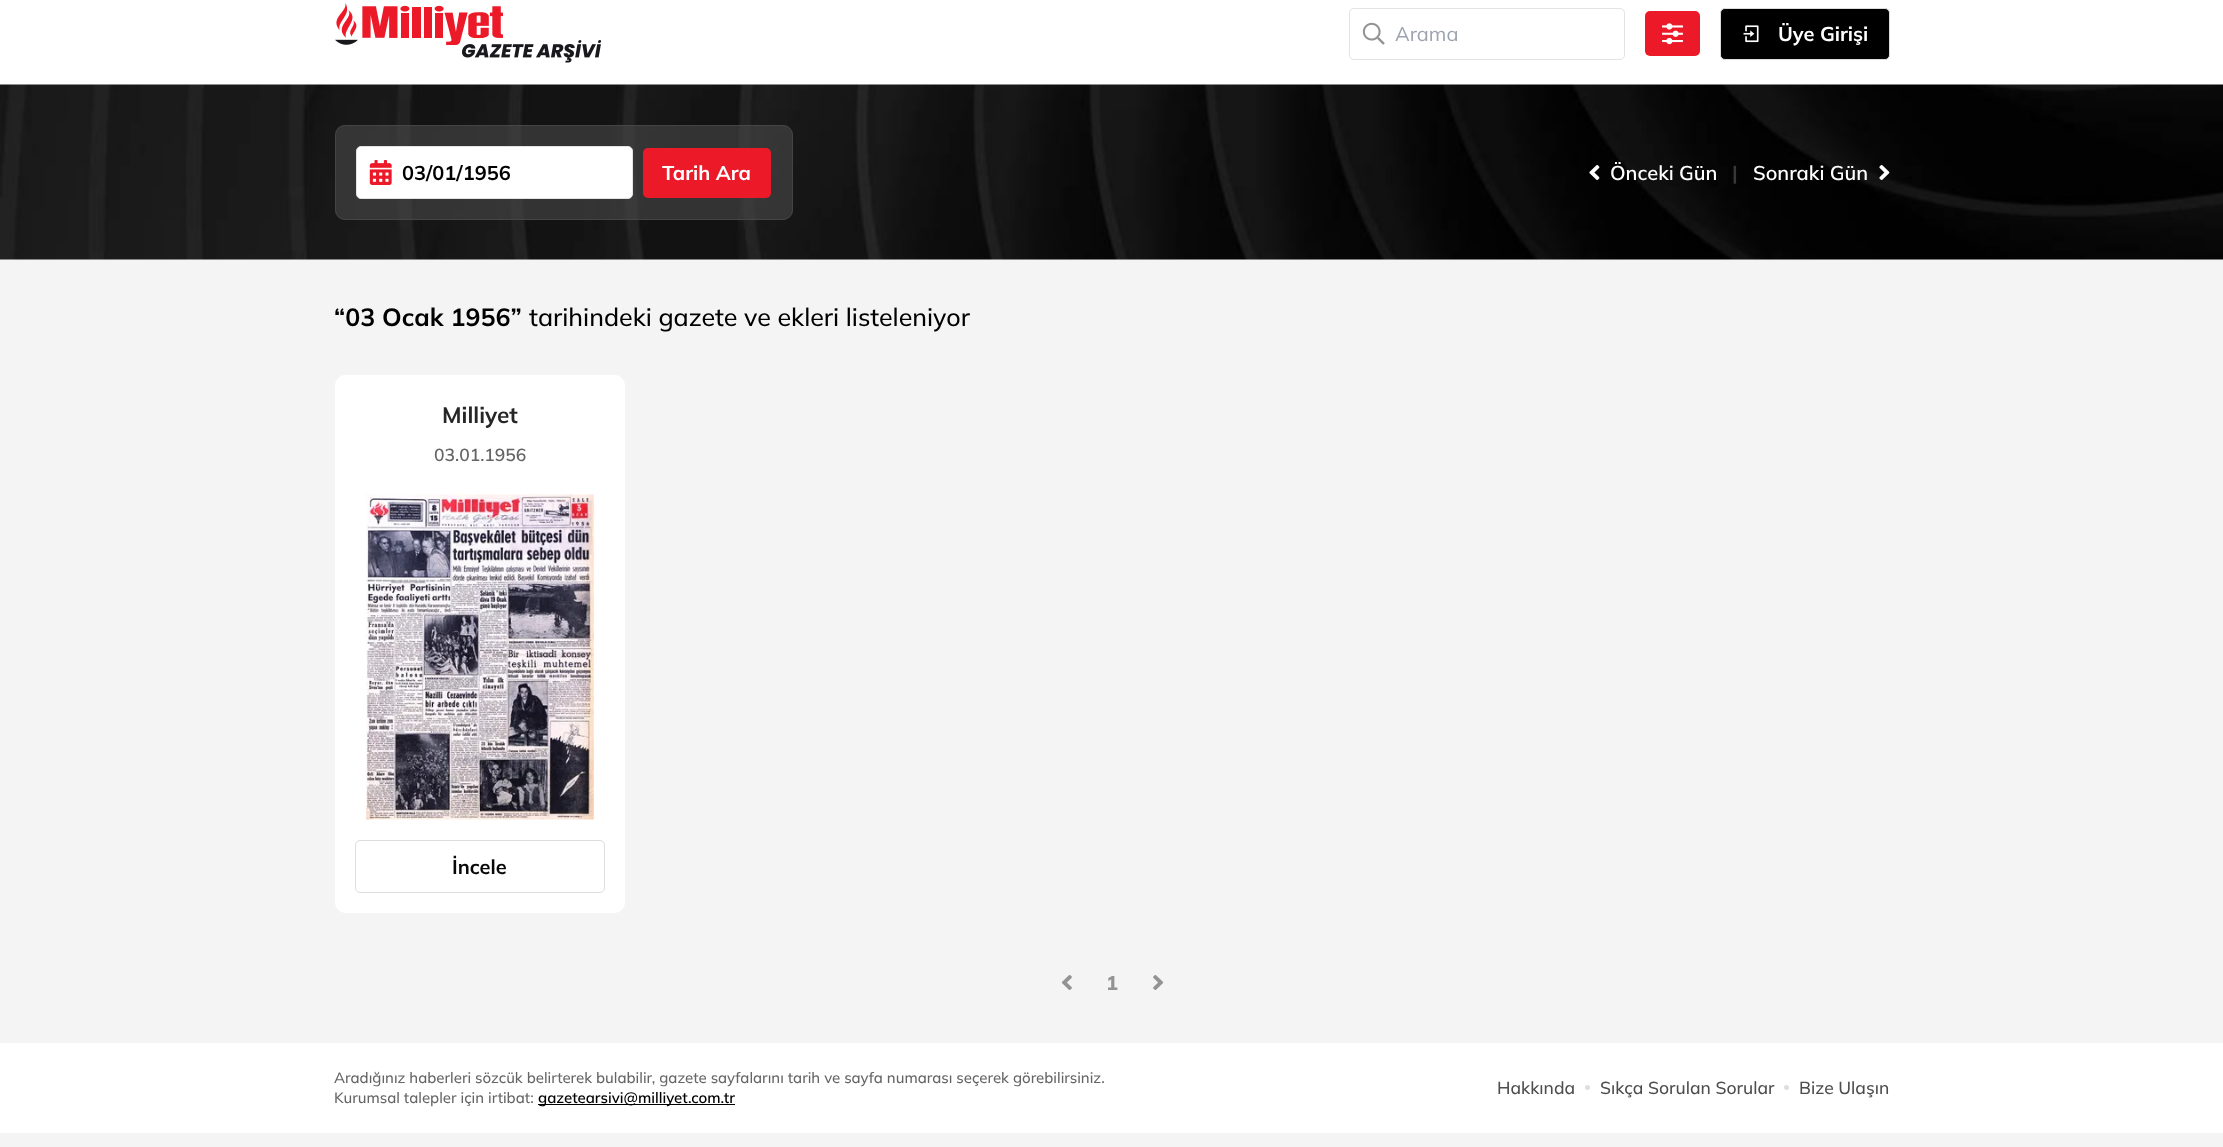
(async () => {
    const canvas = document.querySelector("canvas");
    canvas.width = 2223;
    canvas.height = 1147;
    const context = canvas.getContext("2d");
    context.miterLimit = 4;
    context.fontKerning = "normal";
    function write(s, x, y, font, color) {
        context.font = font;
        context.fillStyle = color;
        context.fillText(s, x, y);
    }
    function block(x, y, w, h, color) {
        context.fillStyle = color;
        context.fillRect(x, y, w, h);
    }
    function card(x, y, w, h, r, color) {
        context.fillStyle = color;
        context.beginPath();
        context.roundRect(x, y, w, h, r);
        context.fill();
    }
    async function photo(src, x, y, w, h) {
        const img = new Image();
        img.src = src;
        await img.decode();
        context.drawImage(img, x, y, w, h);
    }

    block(0, 0, 2223, 1147, "rgb(244, 244, 244)");
    block(0, 0, 2223, 85, "rgb(255, 255, 255)");
    await photo("media/1.png", 335, 3, 267, 60);
    context.beginPath();
    context.roundRect(1349.5, 8.5, 275, 51, 4.5);
    context.strokeStyle = "rgb(227, 227, 227)";
    context.stroke();
    await photo("media/2.png", 1362, 22, 23, 23);
    write("Arama", 1395, 41, "20px Mulish", "rgb(156, 163, 175)");
    card(1645, 11, 55, 45, 5, "rgb(236, 26, 41)");
    await photo("media/3.png", 1662, 23, 21, 22);
    context.fillStyle = "rgb(0, 0, 0)";
    context.beginPath();
    context.roundRect(1720.5, 8.5, 169, 51, 4.5);
    context.fill();
    context.strokeStyle = "rgb(221, 220, 220)";
    context.stroke();
    await photo("media/4.png", 1743, 25, 16, 18);
    write("Üye Girişi", 1778, 41, "bold 20px Mulish", "rgb(255, 255, 255)");
    await photo("media/5.png", 0, 84, 2223, 176);
    card(335, 125, 458, 95, 10, "rgba(75, 73, 73, 0.6)");
    context.beginPath();
    context.roundRect(335.5, 125.5, 457, 94, 9.5);
    context.strokeStyle = "rgba(76, 76, 76, 0.7)";
    context.stroke();
    context.fillStyle = "rgb(255, 255, 255)";
    context.beginPath();
    context.roundRect(356.5, 146.5, 276, 52, 4.5);
    context.fill();
    context.strokeStyle = "rgb(227, 227, 227)";
    context.stroke();
    await photo("media/6.png", 369, 160, 23, 25);
    write("03/01/1956", 402, 180, "bold 20px Mulish", "rgb(0, 0, 0)");
    card(643, 148, 128, 50, 5, "rgb(236, 26, 41)");
    write("Tarih Ara", 662, 180, "bold 20px Mulish", "rgb(255, 255, 255)");
    await photo("media/7.png", 1589, 165, 11, 15);
    write("Önceki Gün", 1610, 180, "600 20px Mulish", "rgb(255, 255, 255)");
    write("|", 1732, 180, "bold 20px Mulish", "rgb(57, 56, 56)");
    write("Sonraki Gün", 1753, 180, "600 20px Mulish", "rgb(255, 255, 255)");
    await photo("media/8.png", 1879, 165, 11, 15);
    write("“03 Ocak 1956”", 334, 326, "bold 25px Mulish", "rgb(0, 0, 0)");
    write("tarihindeki gazete ve ekleri listeleniyor", 529, 326, "500 25px Mulish", "rgb(0, 0, 0)");
    card(335, 375, 290, 538, 10, "rgb(255, 255, 255)");
    write("Milliyet", 442, 423, "bold 22.5px Mulish", "rgb(38, 38, 38)");
    write("03.01.1956", 434, 461, "600 17.5px Mulish", "rgb(101, 101, 101)");
    await photo("media/9.png", 366, 494, 228, 326);
    context.beginPath();
    context.roundRect(355.5, 840.5, 249, 52, 4.5);
    context.strokeStyle = "rgb(221, 221, 221)";
    context.stroke();
    write("İncele", 452, 874, "bold 20px Mulish", "rgb(8, 8, 8)");
    await photo("media/10.png", 1061, 975, 11, 15);
    write("1", 1106, 990, "800 20px Mulish", "rgb(147, 147, 147)");
    await photo("media/11.png", 1153, 975, 11, 15);
    block(0, 1043, 2223, 90, "rgb(255, 255, 255)");
    write("Aradığınız haberleri sözcük belirterek bulabilir, gazete sayfalarını tarih ve sayfa numarası seçerek görebilirsiniz.", 334, 1083, "500 15px Mulish", "rgb(101, 101, 101)");
    write("Kurumsal talepler için irtibat:", 334, 1103, "500 15px Mulish", "rgb(101, 101, 101)");
    block(538, 1104, 197, 1, "rgb(0, 0, 0)");
    write("gazetearsivi@milliyet.com.tr", 538, 1103, "600 15px Mulish", "rgb(0, 0, 0)");
    write("Hakkında", 1497, 1094, "500 17.5px Mulish", "rgb(77, 77, 77)");
    context.fillStyle = "rgb(223, 222, 222)";
    context.beginPath();
    context.arc(1587.5, 1087.5, 2.5, 0, Math.PI * 2);
    context.fill();
    write("Sıkça Sorulan Sorular", 1600, 1094, "500 17.5px Mulish", "rgb(77, 77, 77)");
    context.fillStyle = "rgb(223, 222, 222)";
    context.beginPath();
    context.arc(1786.5, 1087.5, 2.5, 0, Math.PI * 2);
    context.fill();
    write("Bize Ulaşın", 1799, 1094, "500 17.5px Mulish", "rgb(77, 77, 77)");
})();
